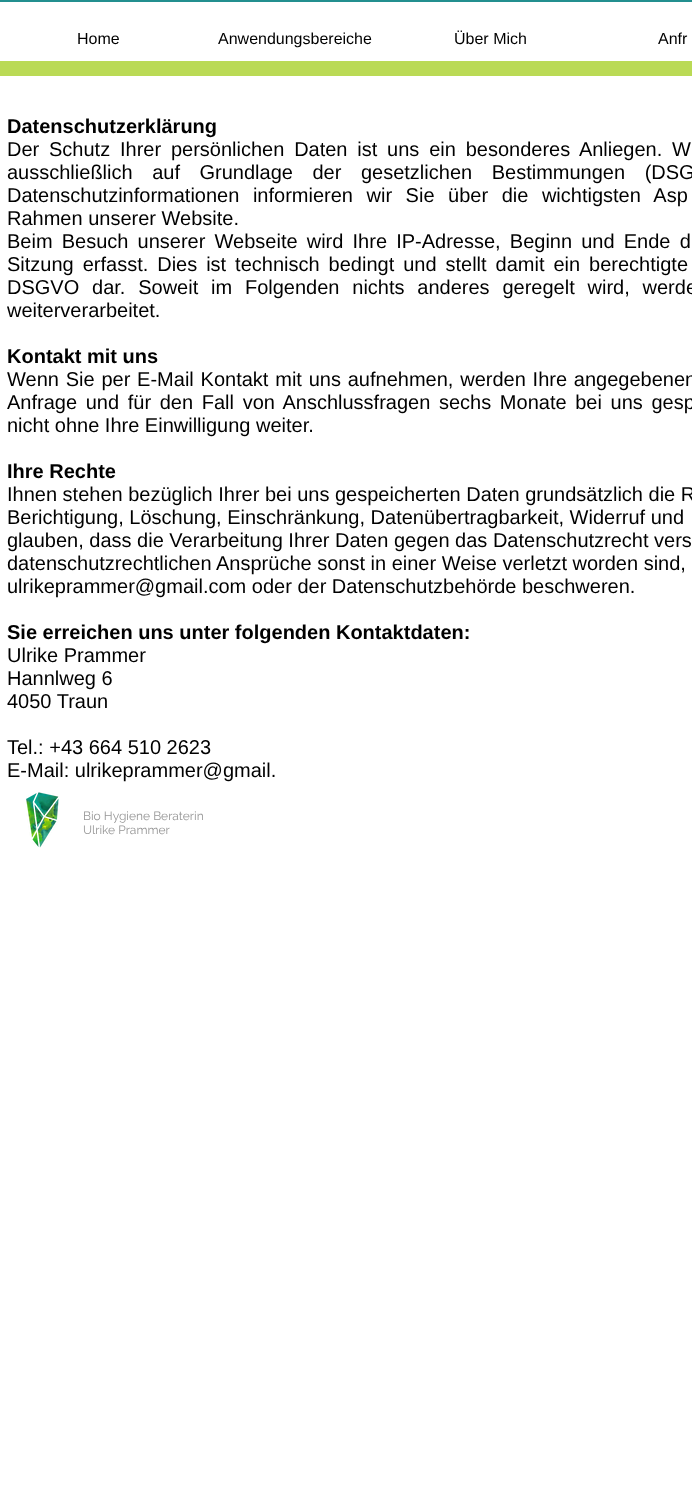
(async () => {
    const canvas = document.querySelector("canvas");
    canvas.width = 692;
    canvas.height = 1511;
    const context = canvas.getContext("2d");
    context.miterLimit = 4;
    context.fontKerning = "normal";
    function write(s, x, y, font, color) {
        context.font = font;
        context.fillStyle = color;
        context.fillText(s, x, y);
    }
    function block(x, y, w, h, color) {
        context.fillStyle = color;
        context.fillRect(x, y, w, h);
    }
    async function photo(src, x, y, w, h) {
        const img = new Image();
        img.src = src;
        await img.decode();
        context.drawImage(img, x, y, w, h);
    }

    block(0, 0, 692, 1511, "rgb(255, 255, 255)");
    block(0, 0, 692, 2, "rgb(35, 143, 143)");
    write("Home", 77, 44, "16px Liberation Sans", "rgb(0, 0, 0)");
    write("Anwendungsbereiche", 218, 44, "16px Liberation Sans", "rgb(0, 0, 0)");
    write("Über Mich", 454, 44, "16px Liberation Sans", "rgb(0, 0, 0)");
    write("Anfr", 658, 44, "16px Liberation Sans", "rgb(0, 0, 0)");
    block(0, 61, 692, 15, "rgb(186, 218, 85)");
    write("Datenschutzerklärung", 7, 133, "bold 20px Liberation Sans", "rgb(0, 0, 0)");
    context.wordSpacing = "4.25px";
    write("Der Schutz Ihrer persönlichen Daten ist uns ein besonderes Anliegen. W", 7, 156, "20px Liberation Sans", "rgb(0, 0, 0)");
    context.wordSpacing = "14px";
    write("ausschließlich auf Grundlage der gesetzlichen Bestimmungen (DSG", 7, 179, "20px Liberation Sans", "rgb(0, 0, 0)");
    context.wordSpacing = "8px";
    write("Datenschutzinformationen informieren wir Sie über die wichtigsten Asp", 7, 202, "20px Liberation Sans", "rgb(0, 0, 0)");
    context.wordSpacing = "0px";
    write("Rahmen unserer Website.", 7, 225, "20px Liberation Sans", "rgb(0, 0, 0)");
    context.wordSpacing = "3.6px";
    write("Beim Besuch unserer Webseite wird Ihre IP-Adresse, Beginn und Ende d", 7, 248, "20px Liberation Sans", "rgb(0, 0, 0)");
    context.wordSpacing = "3.4px";
    write("Sitzung erfasst. Dies ist technisch bedingt und stellt damit ein berechtigte", 7, 271, "20px Liberation Sans", "rgb(0, 0, 0)");
    context.wordSpacing = "7.25px";
    write("DSGVO dar. Soweit im Folgenden nichts anderes geregelt wird, werde", 7, 294, "20px Liberation Sans", "rgb(0, 0, 0)");
    context.wordSpacing = "0px";
    write("weiterverarbeitet.", 7, 317, "20px Liberation Sans", "rgb(0, 0, 0)");
    write("Kontakt mit uns", 7, 363, "bold 20px Liberation Sans", "rgb(0, 0, 0)");
    context.wordSpacing = "1.25px";
    write("Wenn Sie per E-Mail Kontakt mit uns aufnehmen, werden Ihre angegebenen", 7, 386, "20px Liberation Sans", "rgb(0, 0, 0)");
    context.wordSpacing = "3.1px";
    write("Anfrage und für den Fall von Anschlussfragen sechs Monate bei uns gesp", 7, 409, "20px Liberation Sans", "rgb(0, 0, 0)");
    context.wordSpacing = "0px";
    write("nicht ohne Ihre Einwilligung weiter.", 7, 432, "20px Liberation Sans", "rgb(0, 0, 0)");
    write("Ihre Rechte", 7, 478, "bold 20px Liberation Sans", "rgb(0, 0, 0)");
    write("Ihnen stehen bezüglich Ihrer bei uns gespeicherten Daten grundsätzlich die R", 7, 501, "20px Liberation Sans", "rgb(0, 0, 0)");
    write("Berichtigung, Löschung, Einschränkung, Datenübertragbarkeit, Widerruf und", 7, 524, "20px Liberation Sans", "rgb(0, 0, 0)");
    write("glauben, dass die Verarbeitung Ihrer Daten gegen das Datenschutzrecht vers", 7, 547, "20px Liberation Sans", "rgb(0, 0, 0)");
    write("datenschutzrechtlichen Ansprüche sonst in einer Weise verletzt worden sind,", 7, 570, "20px Liberation Sans", "rgb(0, 0, 0)");
    write("ulrikeprammer@gmail.com oder der Datenschutzbehörde beschweren.", 7, 593, "20px Liberation Sans", "rgb(0, 0, 0)");
    write("Sie erreichen uns unter folgenden Kontaktdaten:", 7, 639, "bold 20px Liberation Sans", "rgb(0, 0, 0)");
    write("Ulrike Prammer", 7, 662, "20px Liberation Sans", "rgb(0, 0, 0)");
    write("Hannlweg 6", 7, 685, "20px Liberation Sans", "rgb(0, 0, 0)");
    write("4050 Traun", 7, 708, "20px Liberation Sans", "rgb(0, 0, 0)");
    write("Tel.: +43 664 510 2623", 7, 754, "20px Liberation Sans", "rgb(0, 0, 0)");
    write("E-Mail: ulrikeprammer@gmail.", 7, 777, "20px Liberation Sans", "rgb(0, 0, 0)");
    await photo("media/1.png", 26, 792, 33, 56);
    write("Bio Hygiene Beraterin", 83, 820, "12px Raleway", "rgb(150, 150, 150)");
    write("Ulrike Prammer", 83, 834, "12px Raleway", "rgb(150, 150, 150)");
})();
